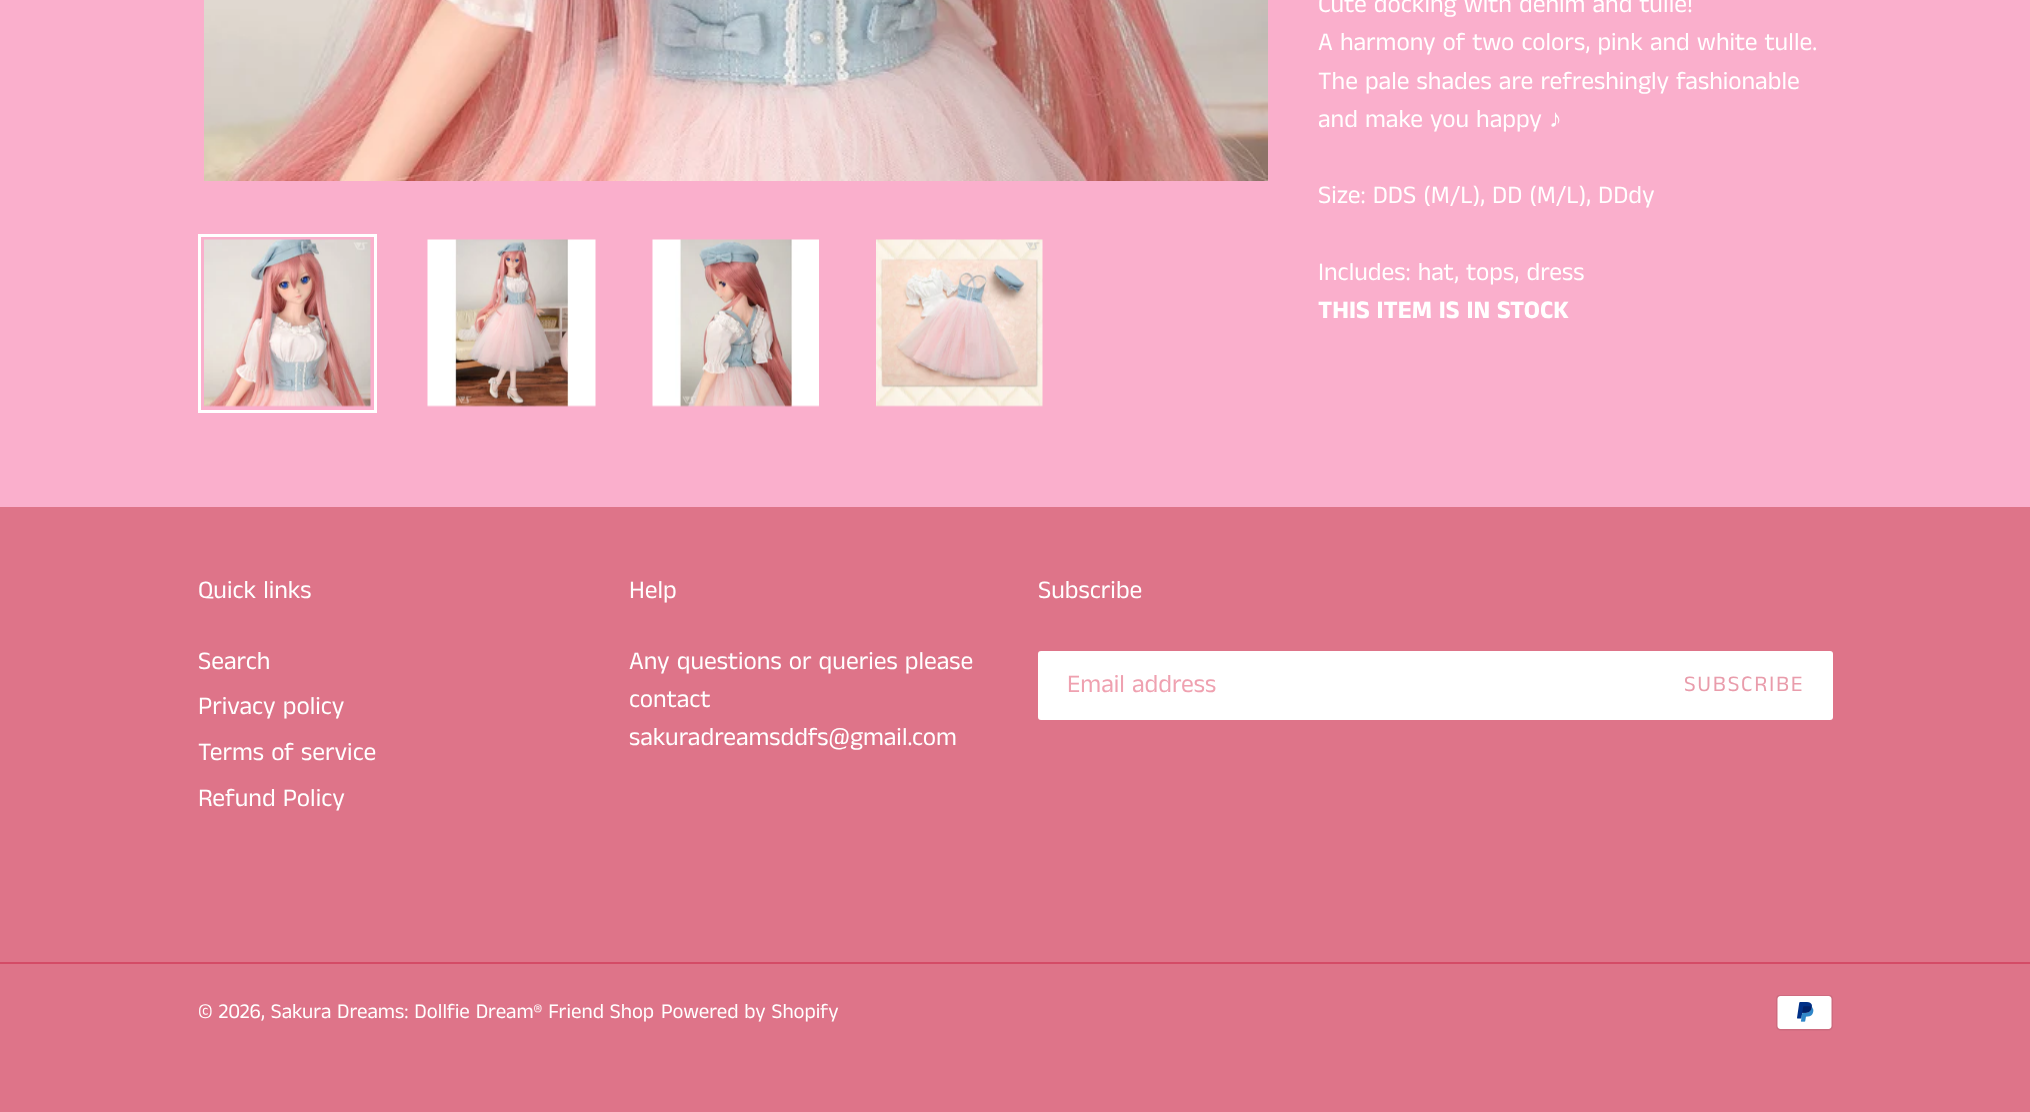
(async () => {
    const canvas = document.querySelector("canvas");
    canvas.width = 2030;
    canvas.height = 1112;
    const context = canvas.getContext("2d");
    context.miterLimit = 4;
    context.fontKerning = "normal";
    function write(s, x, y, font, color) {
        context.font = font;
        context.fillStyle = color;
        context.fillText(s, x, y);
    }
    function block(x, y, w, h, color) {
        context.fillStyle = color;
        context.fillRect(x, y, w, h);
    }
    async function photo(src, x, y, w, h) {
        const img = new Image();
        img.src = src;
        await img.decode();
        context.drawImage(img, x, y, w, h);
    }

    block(0, 0, 2030, 1112, "rgb(250, 175, 204)");
    await photo("media/1.png", 204, 0, 1064, 181);
    context.strokeStyle = "rgb(255, 255, 255)";
    context.lineWidth = 3;
    context.strokeRect(199.5, 235.5, 176, 176);
    await photo("media/2.png", 204, 239, 167, 168);
    await photo("media/3.png", 427, 239, 169, 168);
    await photo("media/4.png", 652, 239, 167, 168);
    await photo("media/5.png", 876, 239, 167, 168);
    write("Cute docking with denim and tulle!", 1318, 12, "25.5px Anek Tamil", "rgb(255, 255, 255)");
    write("A harmony of two colors, pink and white tulle.", 1318, 50, "25.5px Anek Tamil", "rgb(255, 255, 255)");
    write("The pale shades are refreshingly fashionable", 1318, 89, "25.5px Anek Tamil", "rgb(255, 255, 255)");
    write("and make you happy", 1318, 127, "25.5px Anek Tamil", "rgb(255, 255, 255)");
    write("♪", 1549, 127, "25.5px Liberation Sans", "rgb(255, 255, 255)");
    write("Size: DDS (M/L), DD (M/L), DDdy", 1318, 203, "25.5px Anek Tamil", "rgb(255, 255, 255)");
    write("Includes: hat, tops, dress", 1318, 280, "25.5px Anek Tamil", "rgb(255, 255, 255)");
    write("THIS ITEM IS IN STOCK", 1318, 318, "bold 25.5px Anek Tamil", "rgb(255, 255, 255)");
    block(0, 507, 2030, 605, "rgb(222, 116, 137)");
    write("Quick links", 198, 598, "25.5px Anek Tamil", "rgb(255, 255, 255)");
    write("Search", 198, 669, "25.5px Anek Tamil", "rgb(255, 255, 255)");
    write("Privacy policy", 198, 714, "25.5px Anek Tamil", "rgb(255, 255, 255)");
    write("Terms of service", 198, 760, "25.5px Anek Tamil", "rgb(255, 255, 255)");
    write("Refund Policy", 198, 806, "25.5px Anek Tamil", "rgb(255, 255, 255)");
    write("Help", 629, 598, "25.5px Anek Tamil", "rgb(255, 255, 255)");
    write("Any questions or queries please", 629, 669, "25.5px Anek Tamil", "rgb(255, 255, 255)");
    write("contact", 629, 707, "25.5px Anek Tamil", "rgb(255, 255, 255)");
    write("sakuradreamsddfs@gmail.com", 629, 745, "25.5px Anek Tamil", "rgb(255, 255, 255)");
    write("Subscribe", 1038, 598, "25.5px Anek Tamil", "rgb(255, 255, 255)");
    context.beginPath();
    context.roundRect(1039, 652, 615, 67, [2, 0, 0, 2]);
    context.fill();
    context.lineWidth = 2;
    context.stroke();
    write("Email address", 1067, 692, "25.5px Anek Tamil", "rgb(239, 161, 176)");
    context.fillStyle = "rgb(255, 255, 255)";
    context.beginPath();
    context.roundRect(1655, 651, 178, 69, [0, 3, 3, 0]);
    context.fill();
    context.letterSpacing = "1.75px";
    write("SUBSCRIBE", 1684, 691, "22.5px Anek Tamil", "rgb(233, 156, 171)");
    block(0, 962, 2030, 2, "rgb(212, 75, 102)");
    context.letterSpacing = "0px";
    write("© 2026, Sakura Dreams: Dollfie Dream® Friend Shop", 198, 1018, "21px Anek Tamil", "rgb(255, 255, 255)");
    write("Powered by Shopify", 661, 1018, "21px Anek Tamil", "rgb(255, 255, 255)");
    await photo("media/6.png", 1776, 995, 57, 36);
})();
